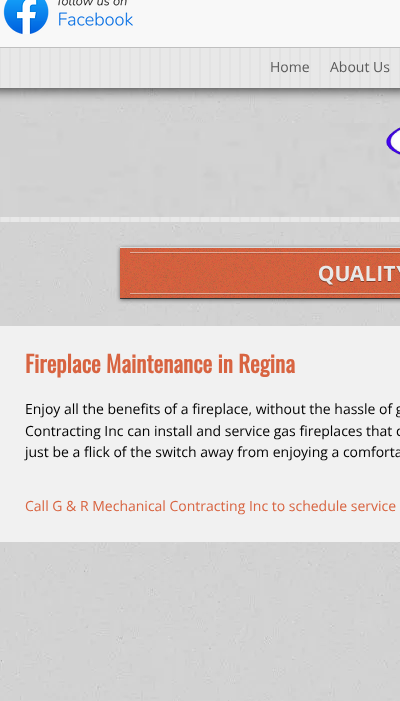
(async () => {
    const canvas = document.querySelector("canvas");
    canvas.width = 400;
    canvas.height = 701;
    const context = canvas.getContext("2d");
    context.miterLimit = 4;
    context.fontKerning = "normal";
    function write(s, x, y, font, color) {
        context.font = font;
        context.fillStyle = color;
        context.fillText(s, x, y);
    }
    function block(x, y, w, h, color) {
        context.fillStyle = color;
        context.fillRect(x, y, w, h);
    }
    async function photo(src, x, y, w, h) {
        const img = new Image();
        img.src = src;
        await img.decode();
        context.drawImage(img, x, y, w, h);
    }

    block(0, 0, 400, 701, "rgb(255, 255, 255)");
    block(0, 0, 400, 47, "rgb(248, 248, 248)");
    await photo("media/1.png", 3, 0, 130, 35);
    block(0, 47, 400, 1, "rgb(191, 191, 191)");
    await photo("media/6.png", 0, 88, 400, 613);
    await photo("media/4.png", 0, 48, 400, 174);
    await photo("media/2.png", 0, 123, 400, 94);
    await photo("media/3.png", 386, 127, 14, 28);
    write("Home", 270, 72, "14px Open Sans", "rgb(90, 90, 90)");
    write("About Us", 330, 72, "14px Open Sans", "rgb(90, 90, 90)");
    await photo("media/5.png", 116, 244, 284, 60);
    block(0, 326, 400, 216, "rgb(241, 241, 241)");
    write("Fireplace Maintenance in Regina", 25, 373, "bold 23px Oswald", "rgb(216, 100, 65)");
    write("Enjoy all the benefits of a fireplace, without the hassle of g", 25, 414, "14px Open Sans", "rgb(0, 0, 0)");
    write("Contracting Inc can install and service gas fireplaces that c", 25, 436, "14px Open Sans", "rgb(0, 0, 0)");
    write("just be a flick of the switch away from enjoying a comforta", 25, 457, "14px Open Sans", "rgb(0, 0, 0)");
    write("Call G & R Mechanical Contracting Inc to schedule service", 25, 511, "14px Open Sans", "rgb(216, 100, 65)");
})();
